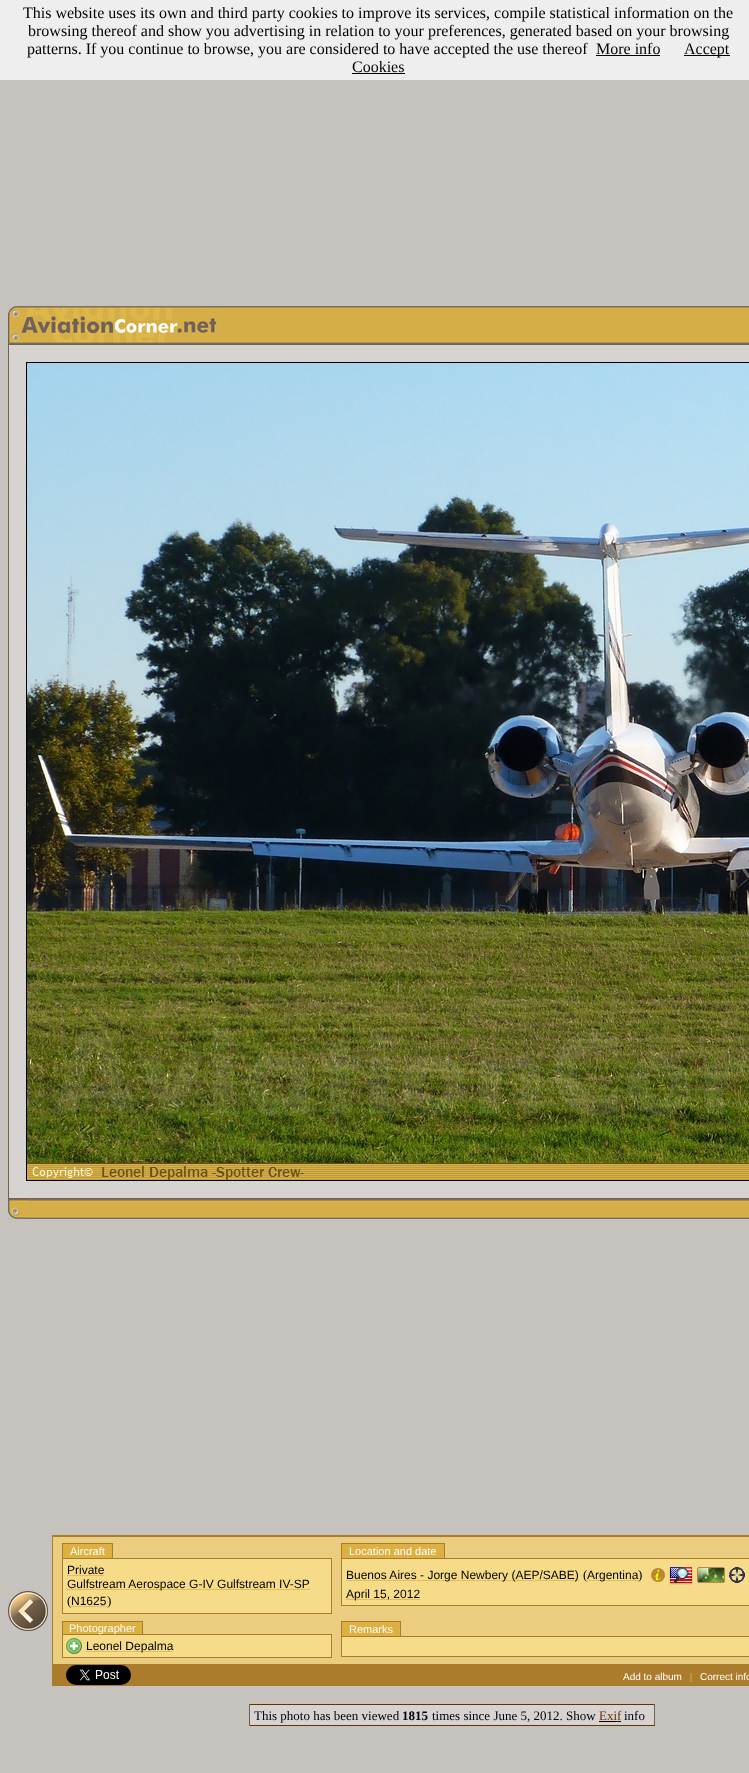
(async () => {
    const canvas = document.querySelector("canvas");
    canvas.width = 749;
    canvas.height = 1773;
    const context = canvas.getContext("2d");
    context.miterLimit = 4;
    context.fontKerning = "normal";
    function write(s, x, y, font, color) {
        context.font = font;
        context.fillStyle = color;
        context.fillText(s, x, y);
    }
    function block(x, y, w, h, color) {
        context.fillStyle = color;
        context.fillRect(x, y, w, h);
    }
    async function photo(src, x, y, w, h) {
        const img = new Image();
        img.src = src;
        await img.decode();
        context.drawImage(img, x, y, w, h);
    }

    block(0, 0, 749, 1773, "rgb(198, 194, 190)");
    block(0, 0, 749, 80, "rgb(238, 238, 238)");
    write("This website uses its own and third party cookies to improve its services, compile statistical information on the", 23, 18, "16px Liberation Serif", "rgb(0, 0, 0)");
    write("browsing thereof and show you advertising in relation to your preferences, generated based on your browsing", 28, 36, "16px Liberation Serif", "rgb(0, 0, 0)");
    write("patterns. If you continue to browse, you are considered to have accepted the use thereof", 27, 54, "16px Liberation Serif", "rgb(0, 0, 0)");
    write("More info", 596, 54, "16px Liberation Serif", "rgb(0, 0, 0)");
    block(596, 55, 64, 1, "rgb(0, 0, 0)");
    block(684, 55, 46, 1, "rgb(0, 0, 0)");
    write("Accept", 684, 54, "16px Liberation Serif", "rgb(0, 0, 0)");
    write("Cookies", 352, 72, "16px Liberation Serif", "rgb(0, 0, 0)");
    block(352, 73, 53, 1, "rgb(0, 0, 0)");
    await photo("media/1.png", 8, 306, 211, 38);
    await photo("media/2.png", 219, 306, 530, 38);
    block(8, 344, 741, 1, "rgb(114, 97, 75)");
    block(8, 345, 1, 853, "rgb(114, 97, 75)");
    block(9, 345, 740, 853, "rgb(215, 211, 208)");
    context.strokeStyle = "rgb(0, 0, 0)";
    context.strokeRect(26.5, 362.5, 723, 818);
    await photo("media/3.png", 27, 363, 722, 817);
    block(8, 1198, 741, 1, "rgb(114, 97, 75)");
    await photo("media/4.png", 8, 1199, 20, 20);
    await photo("media/5.png", 28, 1199, 721, 20);
    await photo("media/6.png", 8, 1591, 40, 40);
    block(52, 1535, 697, 1, "rgb(172, 124, 45)");
    block(52, 1685, 697, 1, "rgb(172, 124, 45)");
    block(52, 1535, 1, 151, "rgb(172, 124, 45)");
    block(53, 1536, 696, 1, "rgb(172, 124, 45)");
    block(53, 1537, 696, 127, "rgb(234, 205, 127)");
    block(63, 1544, 49, 14, "rgb(221, 176, 66)");
    block(62, 1543, 51, 1, "rgb(172, 124, 45)");
    block(62, 1558, 270, 1, "rgb(172, 124, 45)");
    block(112, 1543, 1, 16, "rgb(172, 124, 45)");
    block(331, 1558, 1, 56, "rgb(172, 124, 45)");
    block(62, 1613, 270, 1, "rgb(172, 124, 45)");
    block(62, 1558, 1, 56, "rgb(172, 124, 45)");
    block(62, 1543, 1, 16, "rgb(172, 124, 45)");
    write("Aircraft", 70, 1555, "11px Liberation Sans", "rgb(255, 255, 255)");
    block(63, 1559, 268, 54, "rgb(246, 220, 137)");
    write("Private", 67, 1574, "12px Liberation Sans", "rgb(0, 0, 0)");
    block(67, 1575, 37, 1, "rgb(227, 190, 91)");
    block(67, 1589, 243, 1, "rgb(227, 190, 91)");
    write("Gulfstream Aerospace G-IV Gulfstream IV-SP", 67, 1588, "12px Liberation Sans", "rgb(0, 0, 0)");
    write("(", 67, 1605, "13px Liberation Serif", "rgb(0, 0, 0)");
    write("N1625", 71, 1605, "12px Liberation Sans", "rgb(0, 0, 0)");
    block(71, 1606, 36, 1, "rgb(227, 190, 91)");
    write(")", 107, 1605, "13px Liberation Serif", "rgb(0, 0, 0)");
    block(342, 1544, 102, 14, "rgb(221, 176, 66)");
    block(341, 1543, 104, 1, "rgb(172, 124, 45)");
    block(341, 1558, 408, 1, "rgb(172, 124, 45)");
    block(444, 1543, 1, 16, "rgb(172, 124, 45)");
    block(341, 1605, 408, 1, "rgb(172, 124, 45)");
    block(341, 1558, 1, 48, "rgb(172, 124, 45)");
    block(341, 1543, 1, 16, "rgb(172, 124, 45)");
    write("Location and date", 349, 1555, "11px Liberation Sans", "rgb(255, 255, 255)");
    block(342, 1559, 407, 46, "rgb(246, 220, 137)");
    block(346, 1580, 233, 1, "rgb(227, 190, 91)");
    write("Buenos Aires - Jorge Newbery (AEP/SABE)", 346, 1579, "12px Liberation Sans", "rgb(0, 0, 0)");
    write("(", 583, 1579, "13px Liberation Serif", "rgb(0, 0, 0)");
    block(587, 1580, 51, 1, "rgb(227, 190, 91)");
    write("Argentina", 587, 1579, "12px Liberation Sans", "rgb(0, 0, 0)");
    write(")", 638, 1579, "13px Liberation Serif", "rgb(0, 0, 0)");
    await photo("media/7.png", 651, 1568, 14, 14);
    await photo("media/8.png", 669, 1567, 24, 18);
    await photo("media/9.png", 697, 1567, 28, 16);
    await photo("media/10.png", 729, 1567, 16, 16);
    block(346, 1599, 74, 1, "rgb(227, 190, 91)");
    write("April 15, 2012", 346, 1598, "12px Liberation Sans", "rgb(0, 0, 0)");
    block(63, 1622, 79, 12, "rgb(221, 176, 66)");
    block(62, 1621, 81, 1, "rgb(172, 124, 45)");
    block(62, 1634, 270, 1, "rgb(172, 124, 45)");
    block(142, 1621, 1, 14, "rgb(172, 124, 45)");
    block(331, 1634, 1, 24, "rgb(172, 124, 45)");
    block(62, 1657, 270, 1, "rgb(172, 124, 45)");
    block(62, 1634, 1, 24, "rgb(172, 124, 45)");
    block(62, 1621, 1, 14, "rgb(172, 124, 45)");
    write("Photographer", 69, 1632, "11px Liberation Sans", "rgb(255, 255, 255)");
    block(63, 1635, 268, 22, "rgb(246, 220, 137)");
    await photo("media/11.png", 66, 1638, 16, 16);
    block(86, 1651, 87, 1, "rgb(227, 190, 91)");
    write("Leonel Depalma", 86, 1650, "12px Liberation Sans", "rgb(0, 0, 0)");
    block(342, 1622, 58, 14, "rgb(221, 176, 66)");
    block(341, 1621, 60, 1, "rgb(172, 124, 45)");
    block(341, 1636, 408, 1, "rgb(172, 124, 45)");
    block(400, 1621, 1, 16, "rgb(172, 124, 45)");
    block(341, 1656, 408, 1, "rgb(172, 124, 45)");
    block(341, 1636, 1, 21, "rgb(172, 124, 45)");
    block(341, 1621, 1, 16, "rgb(172, 124, 45)");
    write("Remarks", 349, 1633, "11px Liberation Sans", "rgb(255, 255, 255)");
    block(342, 1637, 407, 19, "rgb(246, 220, 137)");
    block(53, 1665, 696, 20, "rgb(172, 124, 45)");
    block(52, 1664, 697, 1, "rgb(172, 124, 45)");
    await photo("media/12.png", 66, 1665, 65, 20);
    write("Add to album", 623, 1680, "10px Liberation Sans", "rgb(255, 255, 255)");
    write("|", 690, 1680, "10px Liberation Serif", "rgb(234, 205, 127)");
    write("Correct info", 700, 1680, "10px Liberation Sans", "rgb(255, 255, 255)");
    block(249, 1704, 406, 1, "rgb(102, 51, 0)");
    block(654, 1704, 1, 22, "rgb(114, 97, 75)");
    block(249, 1725, 406, 1, "rgb(102, 51, 0)");
    block(249, 1704, 1, 22, "rgb(114, 97, 75)");
    block(250, 1705, 404, 20, "rgb(215, 211, 208)");
    write("This photo has been viewed", 254, 1720, "13px Liberation Serif", "rgb(0, 0, 15)");
    write("1815", 402, 1720, "bold 13px Liberation Serif", "rgb(0, 0, 15)");
    write("times since June 5, 2012. Show", 432, 1720, "13px Liberation Serif", "rgb(0, 0, 15)");
    block(599, 1721, 22, 1, "rgb(0, 0, 0)");
    write("Exif", 599, 1720, "13px Liberation Serif", "rgb(102, 51, 0)");
    write("info", 624, 1720, "13px Liberation Serif", "rgb(0, 0, 15)");
})();
